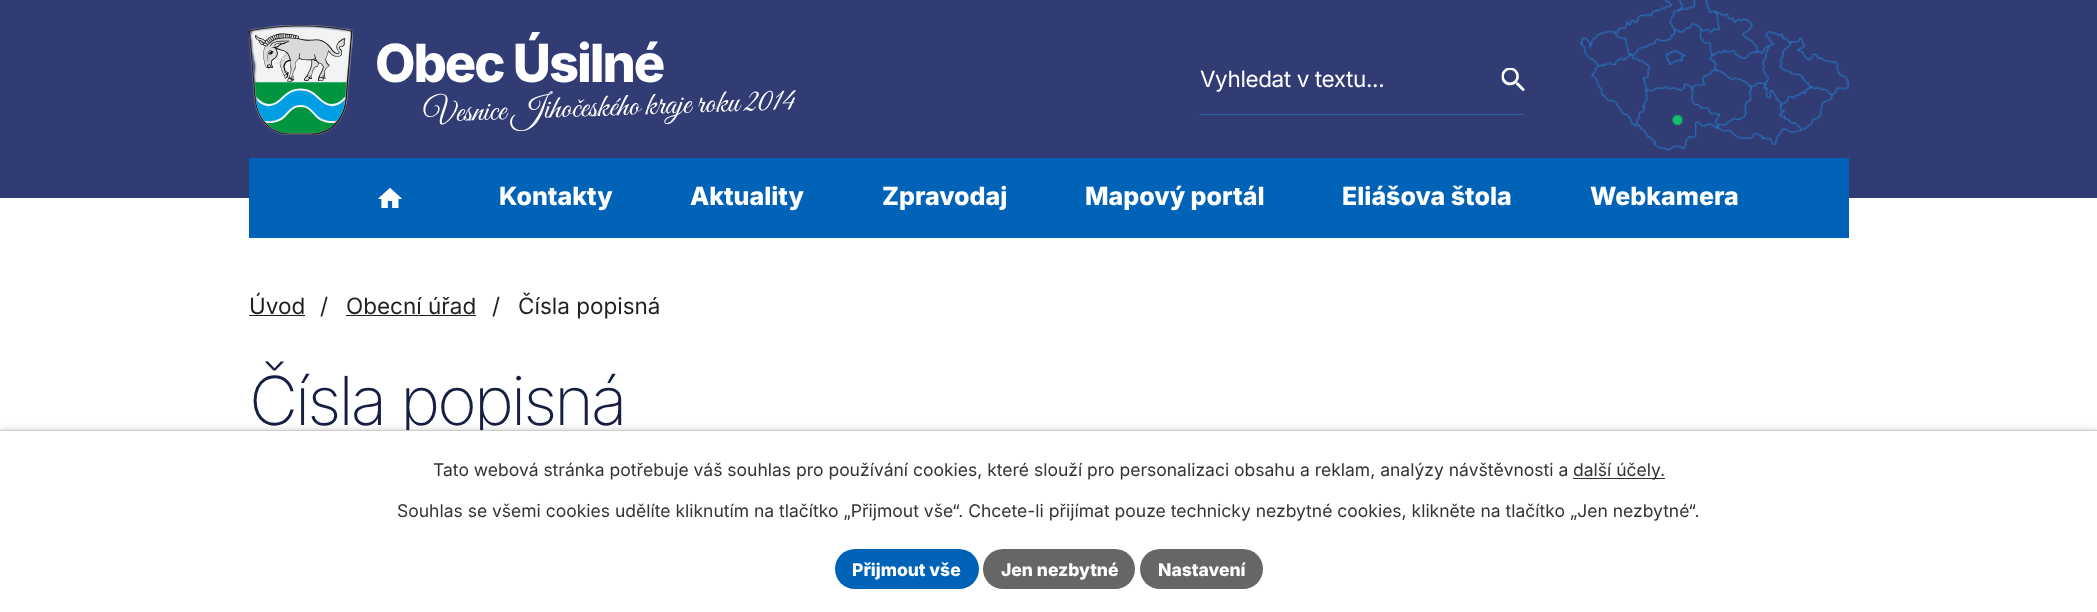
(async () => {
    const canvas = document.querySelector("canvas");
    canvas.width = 2097;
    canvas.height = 612;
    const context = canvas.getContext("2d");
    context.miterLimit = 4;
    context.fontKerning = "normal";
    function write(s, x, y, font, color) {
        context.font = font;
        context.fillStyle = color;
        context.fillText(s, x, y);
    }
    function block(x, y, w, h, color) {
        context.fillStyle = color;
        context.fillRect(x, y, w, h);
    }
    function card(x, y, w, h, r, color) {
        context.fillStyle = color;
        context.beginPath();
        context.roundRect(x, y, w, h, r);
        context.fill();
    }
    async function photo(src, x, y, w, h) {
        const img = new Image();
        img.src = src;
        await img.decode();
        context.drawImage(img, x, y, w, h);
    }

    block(0, 0, 2097, 612, "rgb(255, 255, 255)");
    block(0, 0, 2097, 198, "rgb(49, 60, 116)");
    await photo("media/1.png", 249, 25, 104, 110);
    await photo("media/2.png", 249, 25, 104, 110);
    context.letterSpacing = "-2.1px";
    write("Obec Úsilné", 375, 82, "800 52.5px Inter", "rgb(255, 255, 255)");
    context.letterSpacing = "0px";
    context.font = "32.6px Great Vibes";
    context.save();
    context.translate(424, 122);
    context.rotate(-2 * Math.PI / 180);
    context.fillText("Vesnice Jihočeského kraje roku 2014", 0, 0);
    context.restore();
    context.fillStyle = "rgb(43, 98, 167)";
    context.beginPath();
    context.moveTo(1525, 115);
    context.lineTo(1199, 115);
    context.lineTo(1200, 114);
    context.lineTo(1524, 114);
    context.closePath();
    context.fill();
    context.letterSpacing = "-0.4px";
    write("Vyhledat v textu...", 1200, 87, "22.5px Inter", "rgb(255, 255, 255)");
    await photo("media/3.png", 1501, 68, 24, 23);
    await photo("media/4.png", 1580, 0, 269, 150);
    block(249, 158, 1600, 80, "rgb(0, 99, 183)");
    await photo("media/5.png", 378, 188, 24, 20);
    await photo("media/6.png", 378, 188, 24, 20);
    context.letterSpacing = "0px";
    write("Kontakty", 499, 205, "800 25px Inter", "rgb(255, 255, 255)");
    write("Aktuality", 690, 205, "800 25px Inter", "rgb(255, 255, 255)");
    write("Zpravodaj", 882, 205, "800 25px Inter", "rgb(255, 255, 255)");
    write("Mapový portál", 1085, 205, "800 25px Inter", "rgb(255, 255, 255)");
    write("Eliášova štola", 1342, 205, "800 25px Inter", "rgb(255, 255, 255)");
    write("Webkamera", 1590, 205, "800 25px Inter", "rgb(255, 255, 255)");
    write("Úvod", 249, 314, "22.5px Inter", "rgb(35, 31, 32)");
    block(249, 315, 56, 1, "rgb(35, 31, 32)");
    write("/", 320, 314, "22.5px Inter", "rgb(35, 31, 32)");
    write("Obecní úřad", 346, 314, "22.5px Inter", "rgb(35, 31, 32)");
    block(346, 315, 130, 1, "rgb(35, 31, 32)");
    write("/", 492, 314, "22.5px Inter", "rgb(35, 31, 32)");
    write("Čísla popisná", 518, 314, "22.5px Inter", "rgb(35, 31, 32)");
    context.letterSpacing = "-2.9px";
    write("Čísla popisná", 249, 425, "200 67.5px Inter", "rgb(23, 30, 68)");
    context.fillStyle = "rgba(0, 0, 0, 0.2)";
    context.filter = "blur(3px)";
    context.beginPath();
    context.rect(0, 430, 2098, 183);
    context.fill();
    context.filter = "none";
    block(0, 431, 2097, 181, "rgb(255, 255, 255)");
    block(0, 430, 2097, 1, "rgb(204, 204, 204)");
    context.letterSpacing = "0px";
    write("Tato webová stránka potřebuje váš souhlas pro používání cookies, které slouží pro personalizaci obsahu a reklam, analýzy návštěvnosti a", 433, 476, "17.5px Inter", "rgb(51, 51, 51)");
    block(1573, 478, 92, 1, "rgb(51, 51, 51)");
    write("další účely.", 1573, 476, "17.5px Inter", "rgb(51, 51, 51)");
    write("Souhlas se všemi cookies udělíte kliknutím na tlačítko „Přijmout vše“. Chcete-li přijímat pouze technicky nezbytné cookies, klikněte na tlačítko „Jen nezbytné“.", 397, 517, "17.5px Inter", "rgb(51, 51, 51)");
    card(835, 549, 144, 40, 20, "rgb(0, 99, 183)");
    write("Přijmout vše", 852, 576, "800 17.5px Inter", "rgb(255, 255, 255)");
    card(983, 549, 152, 40, 20, "rgb(102, 102, 102)");
    write("Jen nezbytné", 1001, 576, "800 17.5px Inter", "rgb(255, 255, 255)");
    card(1140, 549, 123, 40, 20, "rgb(102, 102, 102)");
    write("Nastavení", 1158, 576, "800 17.5px Inter", "rgb(255, 255, 255)");
})();
